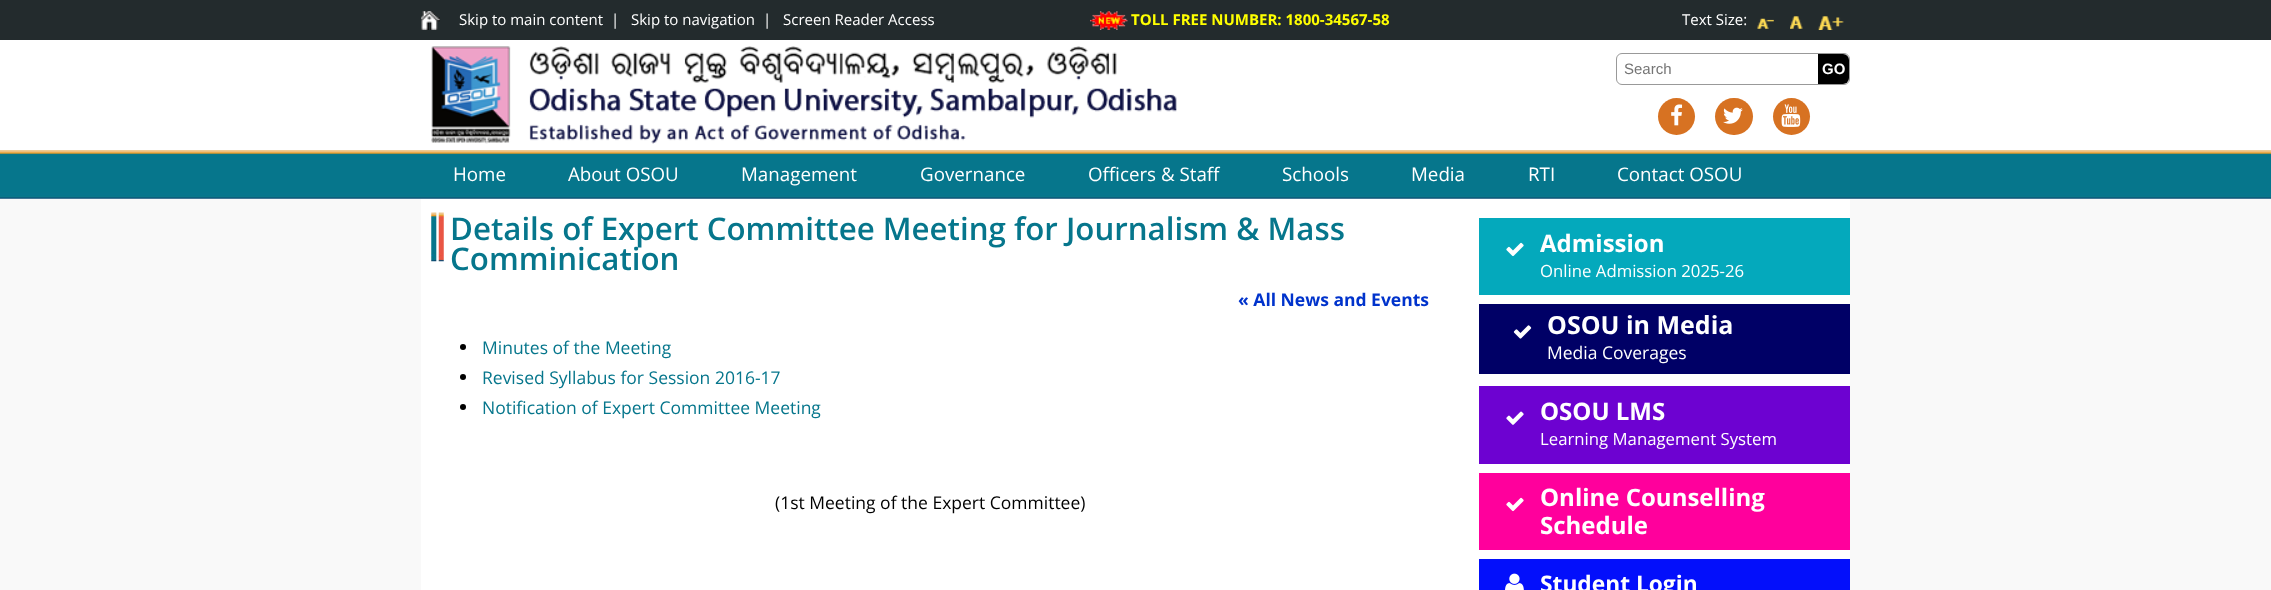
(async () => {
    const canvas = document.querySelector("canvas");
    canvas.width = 2271;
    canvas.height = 590;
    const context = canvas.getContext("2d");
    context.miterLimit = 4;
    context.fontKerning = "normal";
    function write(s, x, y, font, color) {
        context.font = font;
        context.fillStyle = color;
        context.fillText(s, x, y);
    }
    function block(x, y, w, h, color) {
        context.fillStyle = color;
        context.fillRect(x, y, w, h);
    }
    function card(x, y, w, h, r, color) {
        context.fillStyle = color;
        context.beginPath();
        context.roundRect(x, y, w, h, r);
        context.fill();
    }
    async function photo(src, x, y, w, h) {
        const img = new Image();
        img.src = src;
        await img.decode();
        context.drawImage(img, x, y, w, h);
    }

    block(0, 0, 2271, 590, "rgb(249, 249, 249)");
    block(0, 0, 2271, 40, "rgb(35, 43, 45)");
    await photo("media/1.png", 421, 11, 19, 19);
    write("Skip to main content", 459, 25, "15px Open Sans", "rgb(255, 255, 255)");
    write("|", 611, 25, "15px Open Sans", "rgb(255, 255, 255)");
    write("Skip to navigation", 631, 25, "15px Open Sans", "rgb(255, 255, 255)");
    write("|", 763, 25, "15px Open Sans", "rgb(255, 255, 255)");
    write("Screen Reader Access", 783, 25, "15px Open Sans", "rgb(255, 255, 255)");
    await photo("media/2.png", 1090, 11, 38, 19);
    write("TOLL FREE NUMBER: 1800-34567-58", 1131, 25, "bold 15px Open Sans", "rgb(255, 255, 0)");
    write("Text Size:", 1682, 25, "15px Open Sans", "rgb(255, 255, 255)");
    await photo("media/3.png", 1757, 18, 17, 11);
    await photo("media/4.png", 1790, 16, 13, 13);
    await photo("media/5.png", 1818, 16, 26, 14);
    block(0, 40, 2271, 110, "rgb(255, 255, 255)");
    await photo("media/6.png", 431, 46, 746, 98);
    context.beginPath();
    context.roundRect(1616.5, 53.5, 233, 31, 5.5);
    context.strokeStyle = "rgb(153, 153, 153)";
    context.stroke();
    write("Search", 1624, 74, "15px Liberation Sans", "rgb(117, 117, 117)");
    context.fillStyle = "rgb(0, 0, 0)";
    context.beginPath();
    context.roundRect(1818, 54, 31, 30, [0, 6, 6, 0]);
    context.fill();
    write("GO", 1822, 74, "bold 15px Liberation Sans", "rgb(255, 255, 255)");
    context.fillStyle = "rgb(215, 114, 34)";
    context.beginPath();
    context.arc(1676.5, 116.5, 18.5, 0, Math.PI * 2);
    context.fill();
    await photo("media/7.png", 1671, 104, 12, 22);
    card(1715, 98, 38, 37, 18.5, "rgb(215, 114, 34)");
    await photo("media/8.png", 1723, 107, 20, 17);
    context.beginPath();
    context.arc(1791.5, 116.5, 18.5, 0, Math.PI * 2);
    context.fill();
    await photo("media/9.png", 1781, 104, 20, 23);
    await photo("media/10.png", 0, 150, 2271, 49);
    write("Home", 453, 181, "18.75px Open Sans", "rgb(255, 255, 255)");
    write("About OSOU", 568, 181, "18.75px Open Sans", "rgb(255, 255, 255)");
    write("Management", 741, 181, "18.75px Open Sans", "rgb(255, 255, 255)");
    write("Governance", 920, 181, "18.75px Open Sans", "rgb(255, 255, 255)");
    write("Officers & Staff", 1088, 181, "18.75px Open Sans", "rgb(255, 255, 255)");
    write("Schools", 1282, 181, "18.75px Open Sans", "rgb(255, 255, 255)");
    write("Media", 1411, 181, "18.75px Open Sans", "rgb(255, 255, 255)");
    write("RTI", 1528, 181, "18.75px Open Sans", "rgb(255, 255, 255)");
    write("Contact OSOU", 1617, 181, "18.75px Open Sans", "rgb(255, 255, 255)");
    block(421, 199, 1429, 391, "rgb(255, 255, 255)");
    await photo("media/11.png", 431, 212, 13, 50);
    write("Details of Expert Committee Meeting for Journalism & Mass", 450, 240, "600 31.25px Open Sans", "rgb(6, 118, 140)");
    write("Comminication", 450, 270, "600 31.25px Open Sans", "rgb(6, 118, 140)");
    write("« All News and Events", 1238, 306, "bold 17.5px Open Sans", "rgb(0, 51, 204)");
    context.fillStyle = "rgb(0, 0, 0)";
    context.beginPath();
    context.arc(463, 347, 3, 0, Math.PI * 2);
    context.fill();
    write("Minutes of the Meeting", 482, 354, "17.5px Open Sans", "rgb(6, 118, 140)");
    context.fillStyle = "rgb(0, 0, 0)";
    context.beginPath();
    context.arc(463, 377, 3, 0, Math.PI * 2);
    context.fill();
    write("Revised Syllabus for Session 2016-17", 482, 384, "17.5px Open Sans", "rgb(6, 118, 140)");
    context.fillStyle = "rgb(0, 0, 0)";
    context.beginPath();
    context.arc(463, 407, 3, 0, Math.PI * 2);
    context.fill();
    write("Notification of Expert Committee Meeting", 482, 414, "17.5px Open Sans", "rgb(6, 118, 140)");
    write("(1st Meeting of the Expert Committee)", 775, 509, "17.5px Open Sans", "rgb(0, 0, 0)");
    block(1479, 218, 371, 77, "rgb(4, 169, 188)");
    await photo("media/12.png", 1506, 242, 18, 15);
    write("Admission", 1540, 252, "bold 24px Open Sans", "rgb(255, 255, 255)");
    write("Online Admission 2025-26", 1540, 277, "16.75px Open Sans", "rgb(255, 255, 255)");
    block(1479, 304, 371, 70, "rgb(0, 0, 102)");
    await photo("media/13.png", 1513, 325, 19, 14);
    write("OSOU in Media", 1547, 334, "bold 25px Open Sans", "rgb(255, 255, 255)");
    write("Media Coverages", 1547, 359, "17.5px Open Sans", "rgb(255, 255, 255)");
    block(1479, 386, 371, 78, "rgb(109, 2, 209)");
    await photo("media/14.png", 1506, 411, 18, 14);
    write("OSOU LMS", 1540, 420, "bold 24px Open Sans", "rgb(255, 255, 255)");
    write("Learning Management System", 1540, 445, "16.75px Open Sans", "rgb(255, 255, 255)");
    block(1479, 473, 371, 77, "rgb(255, 0, 156)");
    await photo("media/15.png", 1506, 497, 18, 15);
    write("Online Counselling", 1540, 506, "bold 24px Open Sans", "rgb(255, 255, 255)");
    write("Schedule", 1540, 534, "bold 24px Open Sans", "rgb(255, 255, 255)");
    block(1479, 559, 371, 31, "rgb(3, 15, 251)");
    await photo("media/16.png", 1505, 573, 19, 17);
    write("Student Login", 1540, 592, "bold 22.75px Open Sans", "rgb(255, 255, 255)");
})();
